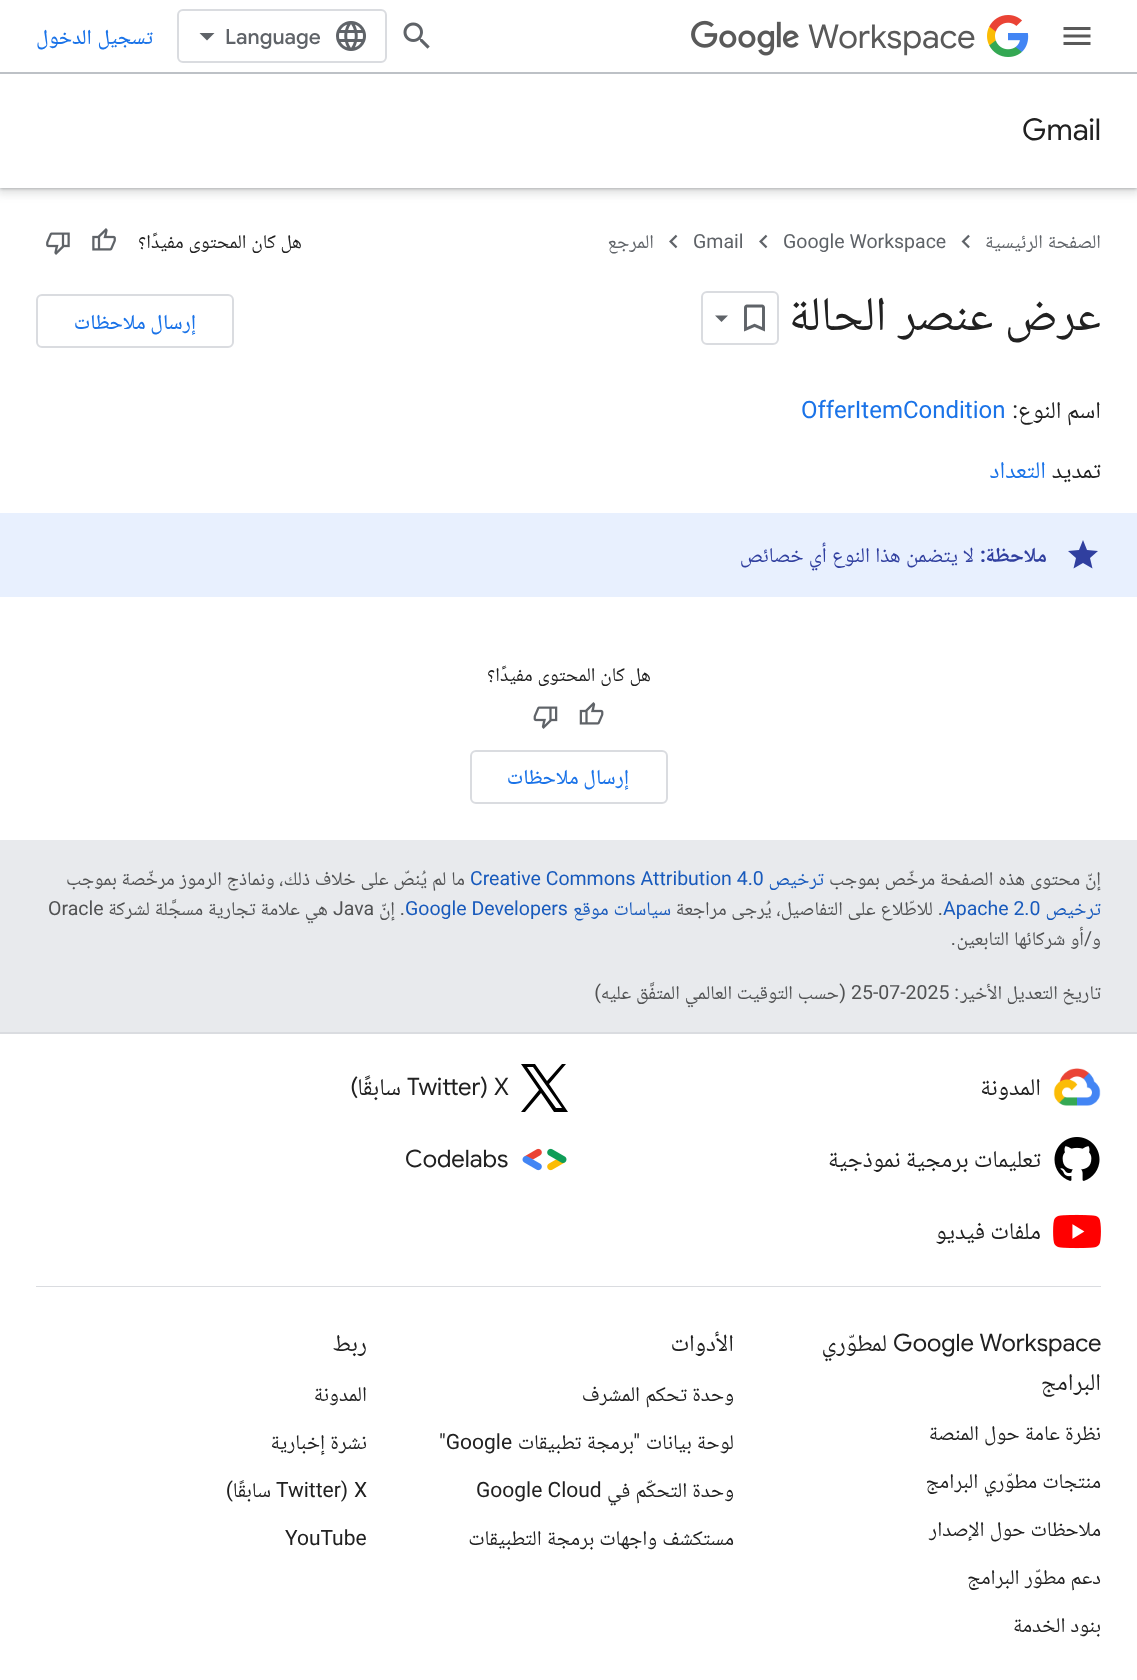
(async () => {
    const canvas = document.querySelector("canvas");
    canvas.width = 1137;
    canvas.height = 1680;
    const context = canvas.getContext("2d");
    context.miterLimit = 4;
    context.fontKerning = "normal";
    function write(s, x, y, font, color) {
        context.font = font;
        context.fillStyle = color;
        context.fillText(s, x, y);
    }
    function block(x, y, w, h, color) {
        context.fillStyle = color;
        context.fillRect(x, y, w, h);
    }
    async function photo(src, x, y, w, h) {
        const img = new Image();
        img.src = src;
        await img.decode();
        context.drawImage(img, x, y, w, h);
    }

    block(0, 0, 1137, 1680, "rgb(232, 234, 237)");
    block(0, 188, 1137, 652, "rgb(255, 255, 255)");
    context.fillStyle = "rgba(60, 64, 67, 0.15)";
    context.filter = "blur(4.5px)";
    context.beginPath();
    context.rect(-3, 74, 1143, 120);
    context.fill();
    context.filter = "none";
    context.fillStyle = "rgba(60, 64, 67, 0.3)";
    context.filter = "blur(1.5px)";
    context.beginPath();
    context.rect(0, 75, 1137, 114);
    context.fill();
    context.filter = "none";
    block(0, 0, 1137, 72, "rgb(255, 255, 255)");
    block(0, 72, 1137, 2, "rgb(189, 193, 198)");
    await photo("media/1.png", 1063, 27, 28, 18);
    await photo("media/2.png", 987, 15, 42, 42);
    write("Workspace", 808, 48, "33px Google Sans", "rgb(89, 89, 89)");
    await photo("media/3.png", 691, 20, 108, 36);
    await photo("media/4.png", 403, 22, 27, 27);
    context.beginPath();
    context.roundRect(178, 10, 208, 52, 5);
    context.strokeStyle = "rgb(218, 220, 224)";
    context.lineWidth = 2;
    context.stroke();
    await photo("media/5.png", 336, 21, 30, 30);
    write("Language", 225, 44, "500 21px Google Sans", "rgb(95, 99, 104)");
    context.beginPath();
    context.moveTo(207, 40.5);
    context.lineTo(199.5, 33);
    context.lineTo(214.5, 33);
    context.closePath();
    context.fill();
    context.wordSpacing = "1px";
    context.direction = "rtl";
    write("تسجيل الدخول", 153, 44, "500 21px Noto Naskh Arabic", "rgb(26, 115, 232)");
    block(0, 74, 1137, 114, "rgb(255, 255, 255)");
    context.wordSpacing = "0px";
    context.direction = "ltr";
    write("Gmail", 1022, 140, "30px Google Sans", "rgb(33, 33, 33)");
    context.wordSpacing = "0.5px";
    context.direction = "rtl";
    write("الصفحة الرئيسية", 1101, 248, "19.5px Noto Naskh Arabic", "rgb(95, 99, 104)");
    await photo("media/6.png", 961, 234, 9, 15);
    context.wordSpacing = "0px";
    context.direction = "ltr";
    write("Google Workspace", 783, 248, "19.5px Roboto", "rgb(95, 99, 104)");
    await photo("media/7.png", 759, 234, 9, 15);
    write("Gmail", 693, 248, "19.5px Roboto", "rgb(95, 99, 104)");
    await photo("media/7.png", 669, 234, 9, 15);
    context.direction = "rtl";
    write("المرجع", 654, 248, "19.5px Noto Naskh Arabic", "rgb(95, 99, 104)");
    context.wordSpacing = "0.5px";
    write("هل كان المحتوى مفيدًا؟", 302, 248, "19.5px Noto Naskh Arabic", "rgb(33, 33, 33)");
    await photo("media/8.png", 92, 228, 24, 23);
    await photo("media/9.png", 46, 232, 24, 23);
    context.wordSpacing = "1px";
    write("عرض عنصر الحالة", 1101, 330, "48px Noto Naskh Arabic", "rgb(33, 33, 33)");
    context.beginPath();
    context.roundRect(702, 292, 76, 52, 5);
    context.stroke();
    await photo("media/10.png", 744, 304, 21, 28);
    context.fillStyle = "rgb(95, 99, 104)";
    context.beginPath();
    context.moveTo(715, 315.5);
    context.lineTo(728, 315.5);
    context.lineTo(721.5, 322);
    context.closePath();
    context.fill();
    context.beginPath();
    context.roundRect(37, 295, 196, 52, 5);
    context.stroke();
    context.wordSpacing = "0px";
    write("إرسال ملاحظات", 196, 329, "500 21px Noto Naskh Arabic", "rgb(26, 115, 232)");
    write("اسم النوع", 1101, 418, "24px Noto Naskh Arabic", "rgb(33, 33, 33)");
    write(":", 1018, 418, "24px Roboto", "rgb(33, 33, 33)");
    context.direction = "ltr";
    write("OfferItemCondition", 801, 418, "24px Roboto", "rgb(26, 115, 232)");
    context.direction = "rtl";
    write("تمديد", 1101, 478, "24px Noto Naskh Arabic", "rgb(33, 33, 33)");
    write("التعداد", 1046, 478, "24px Noto Naskh Arabic", "rgb(26, 115, 232)");
    block(0, 513, 1137, 84, "rgb(232, 240, 254)");
    context.fillStyle = "rgb(48, 63, 159)";
    context.beginPath();
    context.moveTo(1083, 563);
    context.lineTo(1073.5, 568.5);
    context.lineTo(1076, 558);
    context.lineTo(1068, 551);
    context.lineTo(1079, 550);
    context.lineTo(1083, 540);
    context.lineTo(1087, 550);
    context.lineTo(1098, 551);
    context.lineTo(1090, 558);
    context.lineTo(1092.5, 568.5);
    context.closePath();
    context.fill();
    write("ملاحظة", 1047, 562, "bold 21px Noto Naskh Arabic", "rgb(48, 63, 159)");
    write(":", 986, 562, "bold 21px Roboto", "rgb(48, 63, 159)");
    context.wordSpacing = "0.5px";
    write("لا يتضمن هذا النوع أي خصائص", 974, 562, "21px Noto Naskh Arabic", "rgb(48, 63, 159)");
    write("هل كان المحتوى مفيدًا؟", 651, 681, "19.5px Noto Naskh Arabic", "rgb(33, 33, 33)");
    await photo("media/11.png", 579, 702, 25, 23);
    await photo("media/12.png", 533, 706, 25, 23);
    context.beginPath();
    context.roundRect(471, 751, 196, 52, 5);
    context.stroke();
    context.wordSpacing = "0px";
    write("إرسال ملاحظات", 629, 784, "500 21px Noto Naskh Arabic", "rgb(26, 115, 232)");
    context.wordSpacing = "0.5px";
    write("إنّ محتوى هذه الصفحة مرخّص بموجب", 1101, 885, "19.5px Noto Naskh Arabic", "rgb(81, 82, 83)");
    context.wordSpacing = "0px";
    write("ترخيص", 824, 885, "19.5px Noto Naskh Arabic", "rgb(24, 90, 188)");
    context.direction = "ltr";
    write("Creative Commons Attribution 4.0", 470, 885, "19.5px Roboto", "rgb(24, 90, 188)");
    context.wordSpacing = "0.5px";
    context.direction = "rtl";
    write("ما لم يُنصّ على خلاف ذلك، ونماذج الرموز مرخّصة بموجب", 465, 885, "19.5px Noto Naskh Arabic", "rgb(81, 82, 83)");
    context.wordSpacing = "0px";
    write("ترخيص", 1101, 915, "19.5px Noto Naskh Arabic", "rgb(24, 90, 188)");
    context.direction = "ltr";
    write("Apache 2.0", 943, 915, "19.5px Roboto", "rgb(24, 90, 188)");
    context.direction = "rtl";
    write(".", 943, 915, "19.5px Roboto", "rgb(81, 82, 83)");
    context.wordSpacing = "0.5px";
    write("للاطّلاع على التفاصيل، يُرجى مراجعة", 933, 915, "19.5px Noto Naskh Arabic", "rgb(81, 82, 83)");
    write("سياسات موقع", 671, 915, "19.5px Noto Naskh Arabic", "rgb(24, 90, 188)");
    context.wordSpacing = "0px";
    context.direction = "ltr";
    write("Google Developers", 405, 915, "19.5px Roboto", "rgb(24, 90, 188)");
    context.direction = "rtl";
    write(".", 405, 915, "19.5px Roboto", "rgb(81, 82, 83)");
    write("إنّ", 395, 915, "19.5px Noto Naskh Arabic", "rgb(81, 82, 83)");
    context.direction = "ltr";
    write("Java", 333, 915, "19.5px Roboto", "rgb(81, 82, 83)");
    context.wordSpacing = "0.5px";
    context.direction = "rtl";
    write("هي علامة تجارية مسجَّلة لشركة", 328, 915, "19.5px Noto Naskh Arabic", "rgb(81, 82, 83)");
    context.wordSpacing = "0px";
    context.direction = "ltr";
    write("Oracle", 48, 915, "19.5px Roboto", "rgb(81, 82, 83)");
    context.direction = "rtl";
    write("و", 1101, 945, "19.5px Noto Naskh Arabic", "rgb(81, 82, 83)");
    write("/", 1092, 945, "19.5px Roboto", "rgb(81, 82, 83)");
    context.wordSpacing = "0.5px";
    write("أو شركائها التابعين", 1084, 945, "19.5px Noto Naskh Arabic", "rgb(81, 82, 83)");
    context.wordSpacing = "0px";
    write(".", 956, 945, "19.5px Roboto", "rgb(81, 82, 83)");
    write("تاريخ التعديل الأخير", 1101, 999, "19.5px Noto Naskh Arabic", "rgb(81, 82, 83)");
    write(":", 959, 999, "19.5px Roboto", "rgb(81, 82, 83)");
    context.direction = "ltr";
    write("25-07-2025", 851, 999, "19.5px Roboto", "rgb(81, 82, 83)");
    context.direction = "rtl";
    write("(", 846, 999, "19.5px Roboto", "rgb(81, 82, 83)");
    context.wordSpacing = "0.5px";
    write("حسب التوقيت العالمي المتفَّق عليه", 839, 999, "19.5px Noto Naskh Arabic", "rgb(81, 82, 83)");
    context.wordSpacing = "0px";
    write(")", 601, 999, "19.5px Roboto", "rgb(81, 82, 83)");
    block(0, 1034, 1137, 646, "rgb(255, 255, 255)");
    block(0, 1032, 1137, 2, "rgb(218, 220, 224)");
    block(36, 1286, 1065, 1, "rgb(218, 220, 224)");
    await photo("media/13.png", 1053, 1068, 48, 38);
    write("المدونة", 1041, 1095, "24px Noto Naskh Arabic", "rgb(33, 33, 33)");
    context.fillStyle = "rgb(0, 0, 0)";
    context.beginPath();
    context.moveTo(549, 1084);
    context.lineTo(566, 1064);
    context.lineTo(562, 1064);
    context.lineTo(547, 1081);
    context.lineTo(535, 1064);
    context.lineTo(521, 1064);
    context.lineTo(539, 1090);
    context.lineTo(521, 1112);
    context.lineTo(525, 1112);
    context.lineTo(541, 1093);
    context.lineTo(554, 1112);
    context.lineTo(568, 1112);
    context.closePath();
    context.moveTo(543, 1090);
    context.lineTo(527, 1067);
    context.lineTo(533, 1067);
    context.lineTo(562, 1108);
    context.lineTo(556, 1108);
    context.closePath();
    context.fill();
    context.direction = "ltr";
    write("X", 494, 1095, "24px Google Sans", "rgb(33, 33, 33)");
    context.direction = "rtl";
    write("(", 488, 1095, "24px Google Sans", "rgb(33, 33, 33)");
    context.direction = "ltr";
    write("Twitter", 407, 1095, "24px Google Sans", "rgb(33, 33, 33)");
    context.direction = "rtl";
    write("سابقًا", 401, 1095, "24px Noto Naskh Arabic", "rgb(33, 33, 33)");
    write(")", 358, 1095, "24px Google Sans", "rgb(33, 33, 33)");
    await photo("media/14.png", 1054, 1137, 46, 44);
    write("تعليمات برمجية نموذجية", 1041, 1167, "24px Noto Naskh Arabic", "rgb(33, 33, 33)");
    await photo("media/15.png", 522, 1148, 45, 23);
    context.direction = "ltr";
    write("Codelabs", 405, 1167, "24px Google Sans", "rgb(33, 33, 33)");
    await photo("media/16.png", 1053, 1214, 48, 35);
    context.direction = "rtl";
    write("ملفات فيديو", 1041, 1239, "24px Noto Naskh Arabic", "rgb(33, 33, 33)");
    context.direction = "ltr";
    write("Google Workspace", 893, 1351, "24px Google Sans", "rgb(33, 33, 33)");
    context.direction = "rtl";
    write("لمطوّري", 887, 1351, "24px Noto Naskh Arabic", "rgb(33, 33, 33)");
    write("البرامج", 1101, 1390, "24px Noto Naskh Arabic", "rgb(33, 33, 33)");
    context.wordSpacing = "0.5px";
    write("نظرة عامة حول المنصة", 1101, 1440, "21px Noto Naskh Arabic", "rgb(33, 33, 33)");
    write("منتجات مطوّري البرامج", 1101, 1488, "21px Noto Naskh Arabic", "rgb(33, 33, 33)");
    write("ملاحظات حول الإصدار", 1101, 1536, "21px Noto Naskh Arabic", "rgb(33, 33, 33)");
    write("دعم مطوّر البرامج", 1101, 1584, "21px Noto Naskh Arabic", "rgb(33, 33, 33)");
    write("بنود الخدمة", 1101, 1632, "21px Noto Naskh Arabic", "rgb(33, 33, 33)");
    context.wordSpacing = "0px";
    write("الأدوات", 734, 1351, "24px Noto Naskh Arabic", "rgb(33, 33, 33)");
    context.wordSpacing = "0.5px";
    write("وحدة تحكم المشرف", 734, 1401, "21px Noto Naskh Arabic", "rgb(33, 33, 33)");
    write("لوحة بيانات", 734, 1449, "21px Noto Naskh Arabic", "rgb(33, 33, 33)");
    context.wordSpacing = "0px";
    write("\"", 640, 1449, "21px Roboto", "rgb(33, 33, 33)");
    context.wordSpacing = "0.5px";
    write("برمجة تطبيقات", 634, 1449, "21px Noto Naskh Arabic", "rgb(33, 33, 33)");
    context.wordSpacing = "0px";
    context.direction = "ltr";
    write("\"Google", 439, 1449, "21px Roboto", "rgb(33, 33, 33)");
    context.wordSpacing = "0.5px";
    context.direction = "rtl";
    write("وحدة التحكّم في", 734, 1497, "21px Noto Naskh Arabic", "rgb(33, 33, 33)");
    context.wordSpacing = "0px";
    context.direction = "ltr";
    write("Google Cloud", 476, 1497, "21px Roboto", "rgb(33, 33, 33)");
    context.wordSpacing = "0.5px";
    context.direction = "rtl";
    write("مستكشف واجهات برمجة التطبيقات", 734, 1545, "21px Noto Naskh Arabic", "rgb(33, 33, 33)");
    context.wordSpacing = "0px";
    write("ربط", 367, 1351, "24px Noto Naskh Arabic", "rgb(33, 33, 33)");
    write("المدونة", 367, 1401, "21px Noto Naskh Arabic", "rgb(33, 33, 33)");
    context.wordSpacing = "0.5px";
    write("نشرة إخبارية", 367, 1449, "21px Noto Naskh Arabic", "rgb(33, 33, 33)");
    context.wordSpacing = "0px";
    context.direction = "ltr";
    write("X", 354, 1497, "21px Roboto", "rgb(33, 33, 33)");
    context.direction = "rtl";
    write("(", 348, 1497, "21px Roboto", "rgb(33, 33, 33)");
    context.direction = "ltr";
    write("Twitter", 276, 1497, "21px Roboto", "rgb(33, 33, 33)");
    context.direction = "rtl";
    write("سابقًا", 271, 1497, "21px Noto Naskh Arabic", "rgb(33, 33, 33)");
    write(")", 233, 1497, "21px Roboto", "rgb(33, 33, 33)");
    context.direction = "ltr";
    write("YouTube", 285, 1545, "21px Roboto", "rgb(33, 33, 33)");
})();
